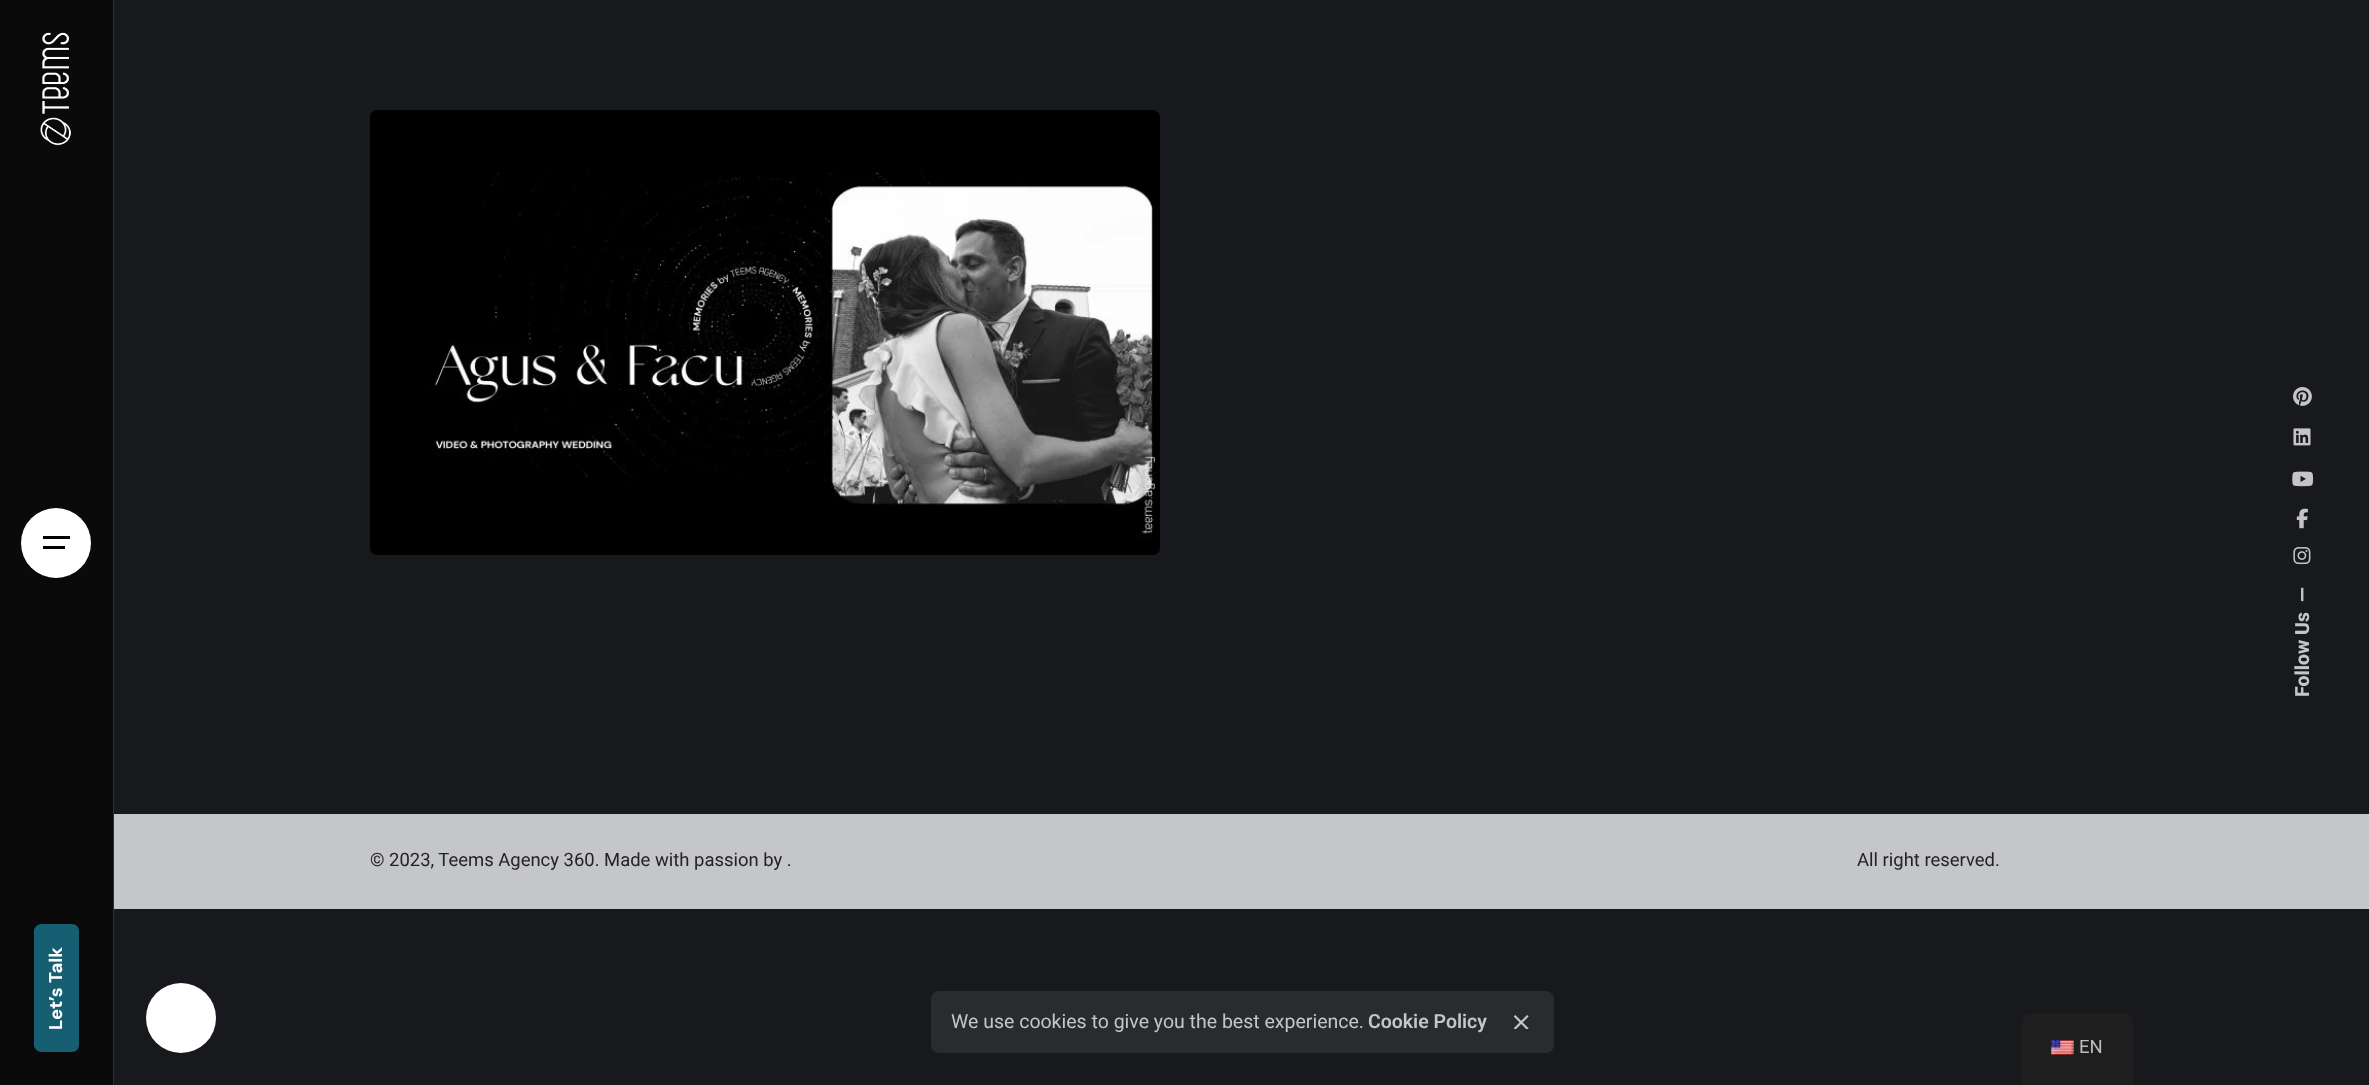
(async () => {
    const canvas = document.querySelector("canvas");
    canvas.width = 2369;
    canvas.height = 1085;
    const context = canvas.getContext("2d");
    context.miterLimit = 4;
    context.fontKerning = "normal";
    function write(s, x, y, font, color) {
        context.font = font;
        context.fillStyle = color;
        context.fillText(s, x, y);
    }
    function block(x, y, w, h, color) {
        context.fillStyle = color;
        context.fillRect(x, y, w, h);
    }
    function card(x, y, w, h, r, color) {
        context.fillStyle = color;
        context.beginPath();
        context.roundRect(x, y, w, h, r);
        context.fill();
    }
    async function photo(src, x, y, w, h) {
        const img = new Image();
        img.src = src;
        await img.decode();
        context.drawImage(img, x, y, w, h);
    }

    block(0, 0, 2369, 1085, "rgb(24, 25, 29)");
    await photo("media/1.png", 370, 110, 790, 445);
    await photo("media/2.png", 2293, 387, 19, 19);
    await photo("media/3.png", 2293, 428, 18, 18);
    await photo("media/4.png", 2292, 471, 22, 16);
    await photo("media/5.png", 2296, 508, 12, 21);
    await photo("media/6.png", 2293, 547, 18, 18);
    context.font = "800 19.5px Roboto";
    context.fillStyle = "rgb(197, 198, 199)";
    context.save();
    context.translate(2309, 602);
    context.rotate(-90 * Math.PI / 180);
    context.fillText("—", 0, 0);
    context.restore();
    context.save();
    context.translate(2309, 697);
    context.rotate(-90 * Math.PI / 180);
    context.fillText("Follow Us", 0, 0);
    context.restore();
    block(114, 814, 2255, 95, "rgb(197, 198, 199)");
    write("© 2023, Teems Agency 360. Made with passion by .", 370, 866, "18.45px Roboto", "rgb(35, 34, 38)");
    write("All right reserved.", 1857, 866, "18.45px Roboto", "rgb(35, 34, 38)");
    block(0, 0, 113, 1085, "rgb(10, 10, 10)");
    block(113, 0, 1, 1085, "rgb(48, 48, 48)");
    await photo("media/7.png", 40, 32, 31, 114);
    context.fillStyle = "rgb(255, 255, 255)";
    context.beginPath();
    context.arc(56, 543, 35, 0, Math.PI * 2);
    context.fill();
    block(43, 536, 27, 3, "rgb(0, 0, 0)");
    block(43, 546, 22, 3, "rgb(0, 0, 0)");
    context.fillStyle = "rgb(22, 95, 114)";
    context.beginPath();
    context.moveTo(34, 1045);
    context.lineTo(34, 931);
    context.bezierCurveTo(34, 927, 38, 924, 41, 924);
    context.lineTo(72, 924);
    context.bezierCurveTo(76, 924, 79, 927, 79, 931);
    context.lineTo(79, 1045);
    context.bezierCurveTo(79, 1049, 76, 1052, 72, 1052);
    context.lineTo(41, 1052);
    context.bezierCurveTo(38, 1052, 34, 1049, 34, 1045);
    context.closePath();
    context.fill();
    context.font = "800 18.45px DM Sans";
    context.fillStyle = "rgb(255, 255, 255)";
    context.save();
    context.translate(62, 1030);
    context.rotate(-90 * Math.PI / 180);
    context.fillText("Let’s Talk", 0, 0);
    context.restore();
    context.beginPath();
    context.arc(181, 1018, 35, 0, Math.PI * 2);
    context.fill();
    card(931, 991, 623, 62, 8, "rgb(42, 43, 47)");
    write("We use cookies to give you the best experience.", 951, 1028, "19.5px Roboto", "rgb(197, 198, 199)");
    write("Cookie Policy", 1368, 1028, "600 19.5px Roboto", "rgb(197, 198, 199)");
    await photo("media/8.png", 1514, 1015, 15, 14);
    context.fillStyle = "rgb(30, 30, 30)";
    context.beginPath();
    context.roundRect(2021, 1013, 112, 72, [10, 10, 0, 0]);
    context.fill();
    await photo("media/9.png", 2051, 1039, 23, 16);
    write("EN", 2079, 1053, "18.45px Roboto", "rgb(189, 189, 189)");
})();
